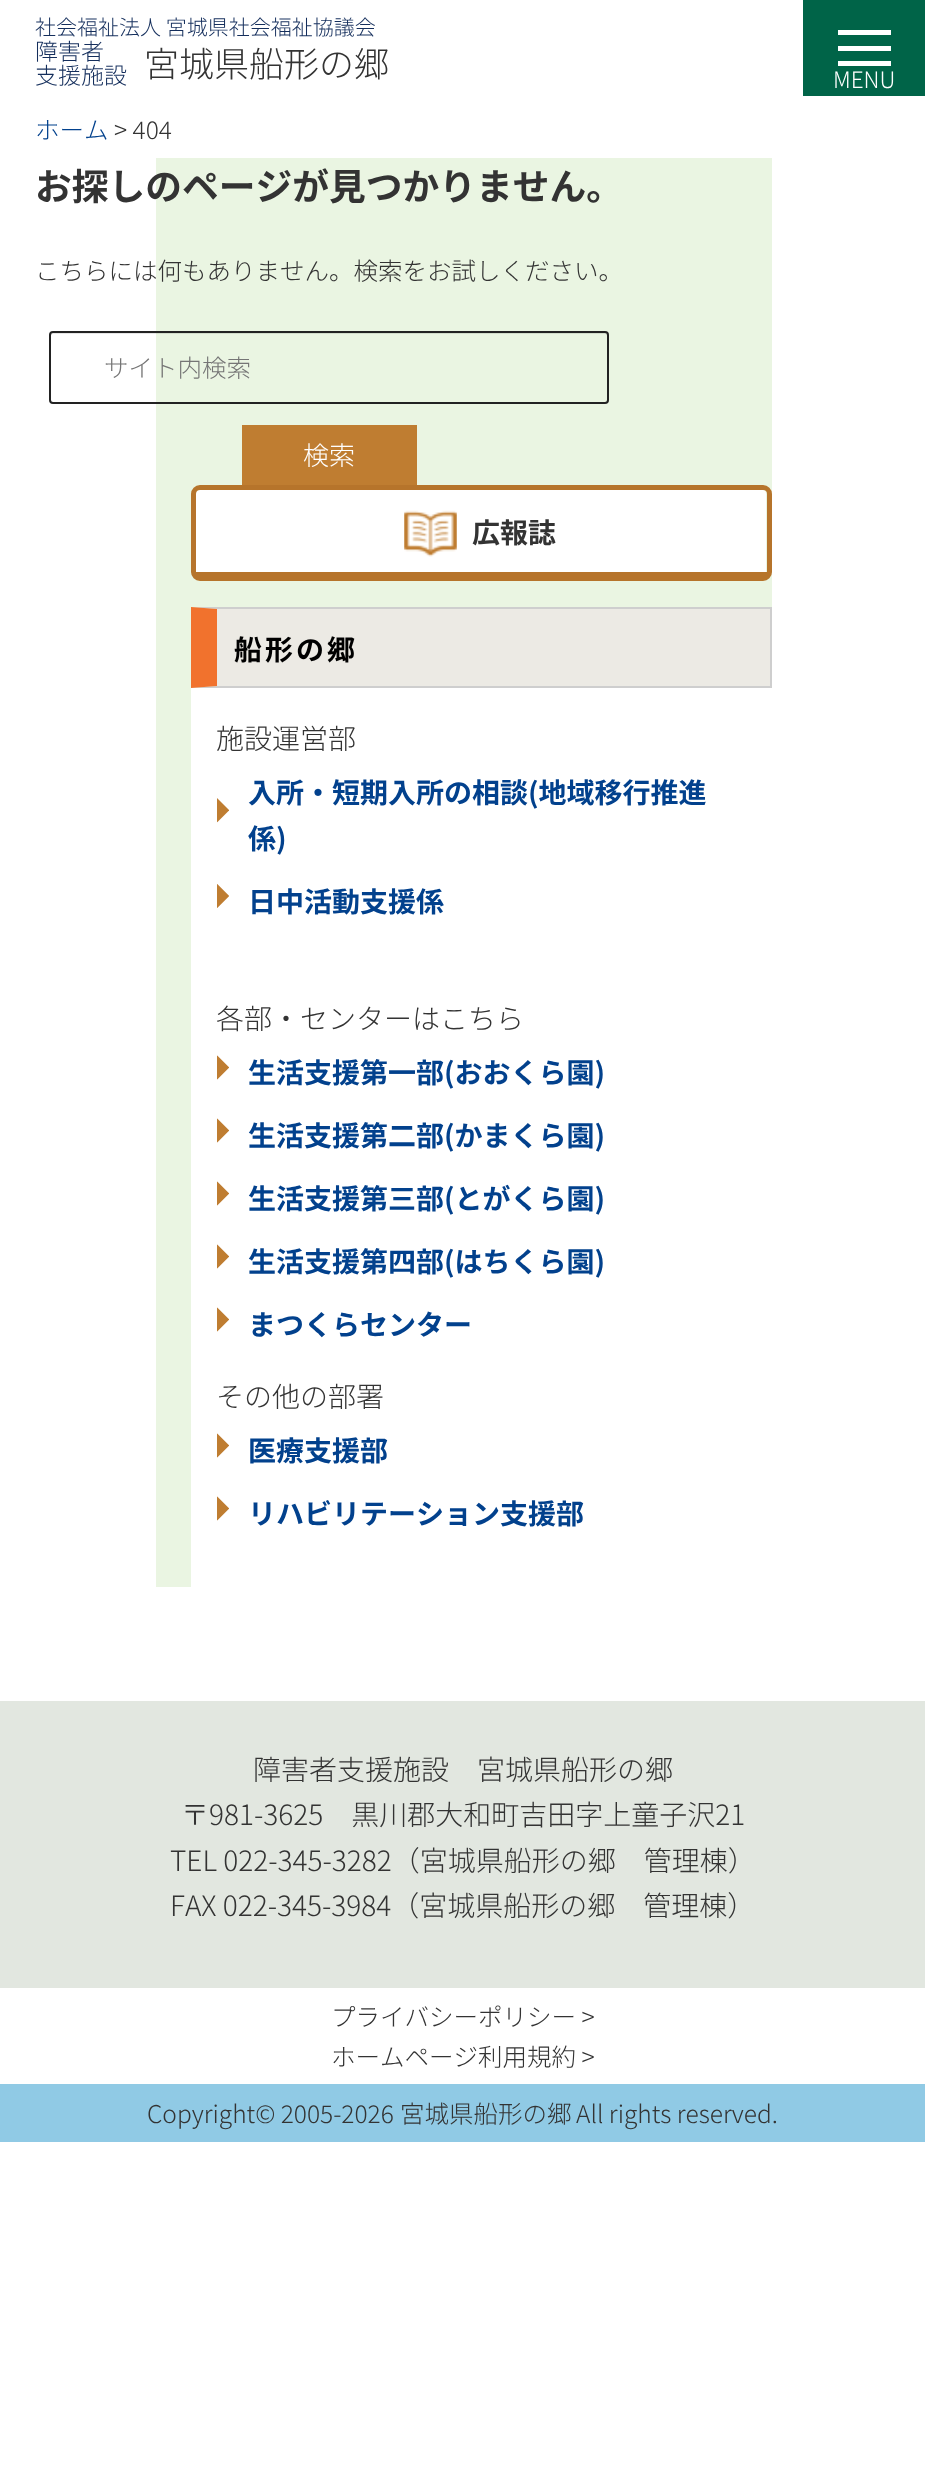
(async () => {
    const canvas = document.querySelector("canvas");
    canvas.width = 925;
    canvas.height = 2469;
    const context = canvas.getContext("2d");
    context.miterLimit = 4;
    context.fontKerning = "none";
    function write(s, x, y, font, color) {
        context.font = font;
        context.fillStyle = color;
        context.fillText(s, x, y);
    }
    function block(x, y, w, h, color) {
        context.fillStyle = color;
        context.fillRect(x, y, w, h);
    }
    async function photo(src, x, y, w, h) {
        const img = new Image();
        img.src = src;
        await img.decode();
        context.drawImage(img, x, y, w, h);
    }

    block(0, 0, 925, 2469, "rgb(255, 255, 255)");
    write("社会福祉法人 宮城県社会福祉協議会", 35, 35, "300 21px Noto Sans JP", "rgb(20, 46, 92)");
    write("障害者", 35, 60, "300 23px Noto Sans JP", "rgb(20, 46, 92)");
    write("支援施設", 35, 84, "300 23px Noto Sans JP", "rgb(20, 46, 92)");
    write("宮城県船形の郷", 144, 77, "300 35px Noto Sans JP", "rgb(51, 51, 51)");
    block(803, 0, 122, 96, "rgb(0, 100, 72)");
    block(838, 46, 53, 5, "rgb(255, 255, 255)");
    block(838, 30, 53, 5, "rgb(255, 255, 255)");
    block(838, 61, 53, 5, "rgb(255, 255, 255)");
    write("MENU", 833, 88, "300 22.5px Noto Sans JP", "rgb(255, 255, 255)");
    write("ホーム", 35, 139, "300 24.5px Noto Sans JP", "rgb(2, 65, 141)");
    write("> 404", 114, 139, "300 24.5px Noto Sans JP", "rgb(51, 51, 51)");
    block(156, 158, 616, 1429, "rgb(234, 245, 226)");
    write("お探しのページが見つかりません。", 35, 200, "bold 36.75px Noto Sans JP", "rgb(51, 51, 51)");
    write("こちらには何もありません。検索をお試しください。", 35, 280, "300 24.5px Noto Sans JP", "rgb(51, 51, 51)");
    context.fillStyle = "rgba(0, 0, 0, 0.1)";
    context.beginPath();
    context.moveTo(52, 334);
    context.lineTo(606, 334);
    context.lineTo(607, 336);
    context.bezierCurveTo(607, 335, 607, 333, 605, 333);
    context.lineTo(53, 333);
    context.lineTo(51, 334);
    context.lineTo(51, 336);
    context.closePath();
    context.fill();
    context.beginPath();
    context.roundRect(50, 332, 558, 71, 3);
    context.strokeStyle = "rgb(34, 34, 34)";
    context.lineWidth = 2;
    context.stroke();
    write("サイト内検索", 104, 377, "300 24.5px Noto Sans JP", "rgb(117, 117, 117)");
    block(242, 425, 175, 60, "rgb(191, 125, 49)");
    write("検索", 303, 465, "300 26px Noto Sans JP", "rgb(255, 255, 255)");
    context.beginPath();
    context.moveTo(200, 490);
    context.lineTo(763, 490);
    context.bezierCurveTo(765, 490, 766, 492, 766, 494);
    context.lineTo(766, 572);
    context.lineTo(196, 572);
    context.lineTo(196, 494);
    context.bezierCurveTo(196, 492, 198, 490, 200, 490);
    context.closePath();
    context.fill();
    context.beginPath();
    context.roundRect(193.5, 487.5, 576, 91, 6.5);
    context.strokeStyle = "rgb(182, 116, 43)";
    context.lineWidth = 5;
    context.stroke();
    block(196, 572, 572, 4, "rgb(182, 116, 43)");
    await photo("media/1.png", 404, 510, 53, 47);
    write("広報誌", 472, 543, "bold 28px Noto Sans JP", "rgb(51, 51, 51)");
    block(217, 609, 553, 77, "rgb(236, 234, 228)");
    context.fillStyle = "rgb(206, 206, 206)";
    context.beginPath();
    context.moveTo(191, 607);
    context.lineTo(772, 607);
    context.lineTo(770, 609);
    context.lineTo(217, 609);
    context.closePath();
    context.fill();
    block(770, 607, 2, 81, "rgb(206, 206, 206)");
    context.beginPath();
    context.moveTo(772, 688);
    context.lineTo(191, 688);
    context.lineTo(217, 686);
    context.lineTo(770, 686);
    context.closePath();
    context.fill();
    context.fillStyle = "rgb(241, 114, 45)";
    context.beginPath();
    context.moveTo(191, 688);
    context.lineTo(191, 607);
    context.lineTo(217, 609);
    context.lineTo(217, 686);
    context.closePath();
    context.fill();
    context.letterSpacing = "3px";
    write("船形の郷", 234, 660, "bold 28px Noto Sans JP", "rgb(0, 0, 0)");
    block(191, 688, 581, 899, "rgb(255, 255, 255)");
    context.letterSpacing = "0px";
    write("施設運営部", 216, 749, "300 28px Noto Sans JP", "rgb(51, 51, 51)");
    await photo("media/2.png", 217, 798, 12, 25);
    write("入所・短期入所の相談(地域移行推進", 248, 803, "bold 28px Noto Sans JP", "rgb(2, 65, 141)");
    write("係)", 248, 849, "bold 28px Noto Sans JP", "rgb(2, 65, 141)");
    await photo("media/3.png", 217, 884, 12, 24);
    write("日中活動支援係", 248, 912, "bold 28px Noto Sans JP", "rgb(2, 65, 141)");
    write("各部・センターはこちら", 216, 1029, "300 28px Noto Sans JP", "rgb(51, 51, 51)");
    await photo("media/4.png", 217, 1055, 12, 25);
    write("生活支援第一部(おおくら園)", 248, 1083, "bold 28px Noto Sans JP", "rgb(2, 65, 141)");
    await photo("media/4.png", 217, 1118, 12, 25);
    write("生活支援第二部(かまくら園)", 248, 1146, "bold 28px Noto Sans JP", "rgb(2, 65, 141)");
    await photo("media/4.png", 217, 1181, 12, 25);
    write("生活支援第三部(とがくら園)", 248, 1209, "bold 28px Noto Sans JP", "rgb(2, 65, 141)");
    await photo("media/4.png", 217, 1244, 12, 25);
    write("生活支援第四部(はちくら園)", 248, 1272, "bold 28px Noto Sans JP", "rgb(2, 65, 141)");
    await photo("media/4.png", 217, 1307, 12, 25);
    write("まつくらセンター", 248, 1335, "bold 28px Noto Sans JP", "rgb(2, 65, 141)");
    write("その他の部署", 216, 1407, "300 28px Noto Sans JP", "rgb(51, 51, 51)");
    await photo("media/4.png", 217, 1433, 12, 25);
    write("医療支援部", 248, 1461, "bold 28px Noto Sans JP", "rgb(2, 65, 141)");
    await photo("media/4.png", 217, 1496, 12, 25);
    write("リハビリテーション支援部", 248, 1524, "bold 28px Noto Sans JP", "rgb(2, 65, 141)");
    block(0, 1701, 925, 287, "rgb(226, 231, 224)");
    write("障害者支援施設　宮城県船形の郷", 253, 1780, "300 28px Noto Sans JP", "rgb(51, 51, 51)");
    write("〒981-3625　黒川郡大和町吉田字上童子沢21", 181, 1825, "300 28px Noto Sans JP", "rgb(51, 51, 51)");
    write("TEL 022-345-3282（宮城県船形の郷　管理棟）", 170, 1871, "300 28px Noto Sans JP", "rgb(51, 51, 51)");
    write("FAX 022-345-3984（宮城県船形の郷　管理棟）", 170, 1916, "300 28px Noto Sans JP", "rgb(51, 51, 51)");
    write("プライバシーポリシー >", 331, 2026, "300 24.5px Noto Sans JP", "rgb(51, 51, 51)");
    write("ホームページ利用規約 >", 331, 2066, "300 24.5px Noto Sans JP", "rgb(51, 51, 51)");
    block(0, 2084, 925, 58, "rgb(144, 202, 229)");
    write("Copyright© 2005-2026", 147, 2123, "300 24.5px Noto Sans JP", "rgb(51, 51, 51)");
    write("宮城県船形の郷", 400, 2123, "300 24.5px Noto Sans JP", "rgb(51, 51, 51)");
    write("All rights reserved.", 576, 2123, "300 24.5px Noto Sans JP", "rgb(51, 51, 51)");
})();
